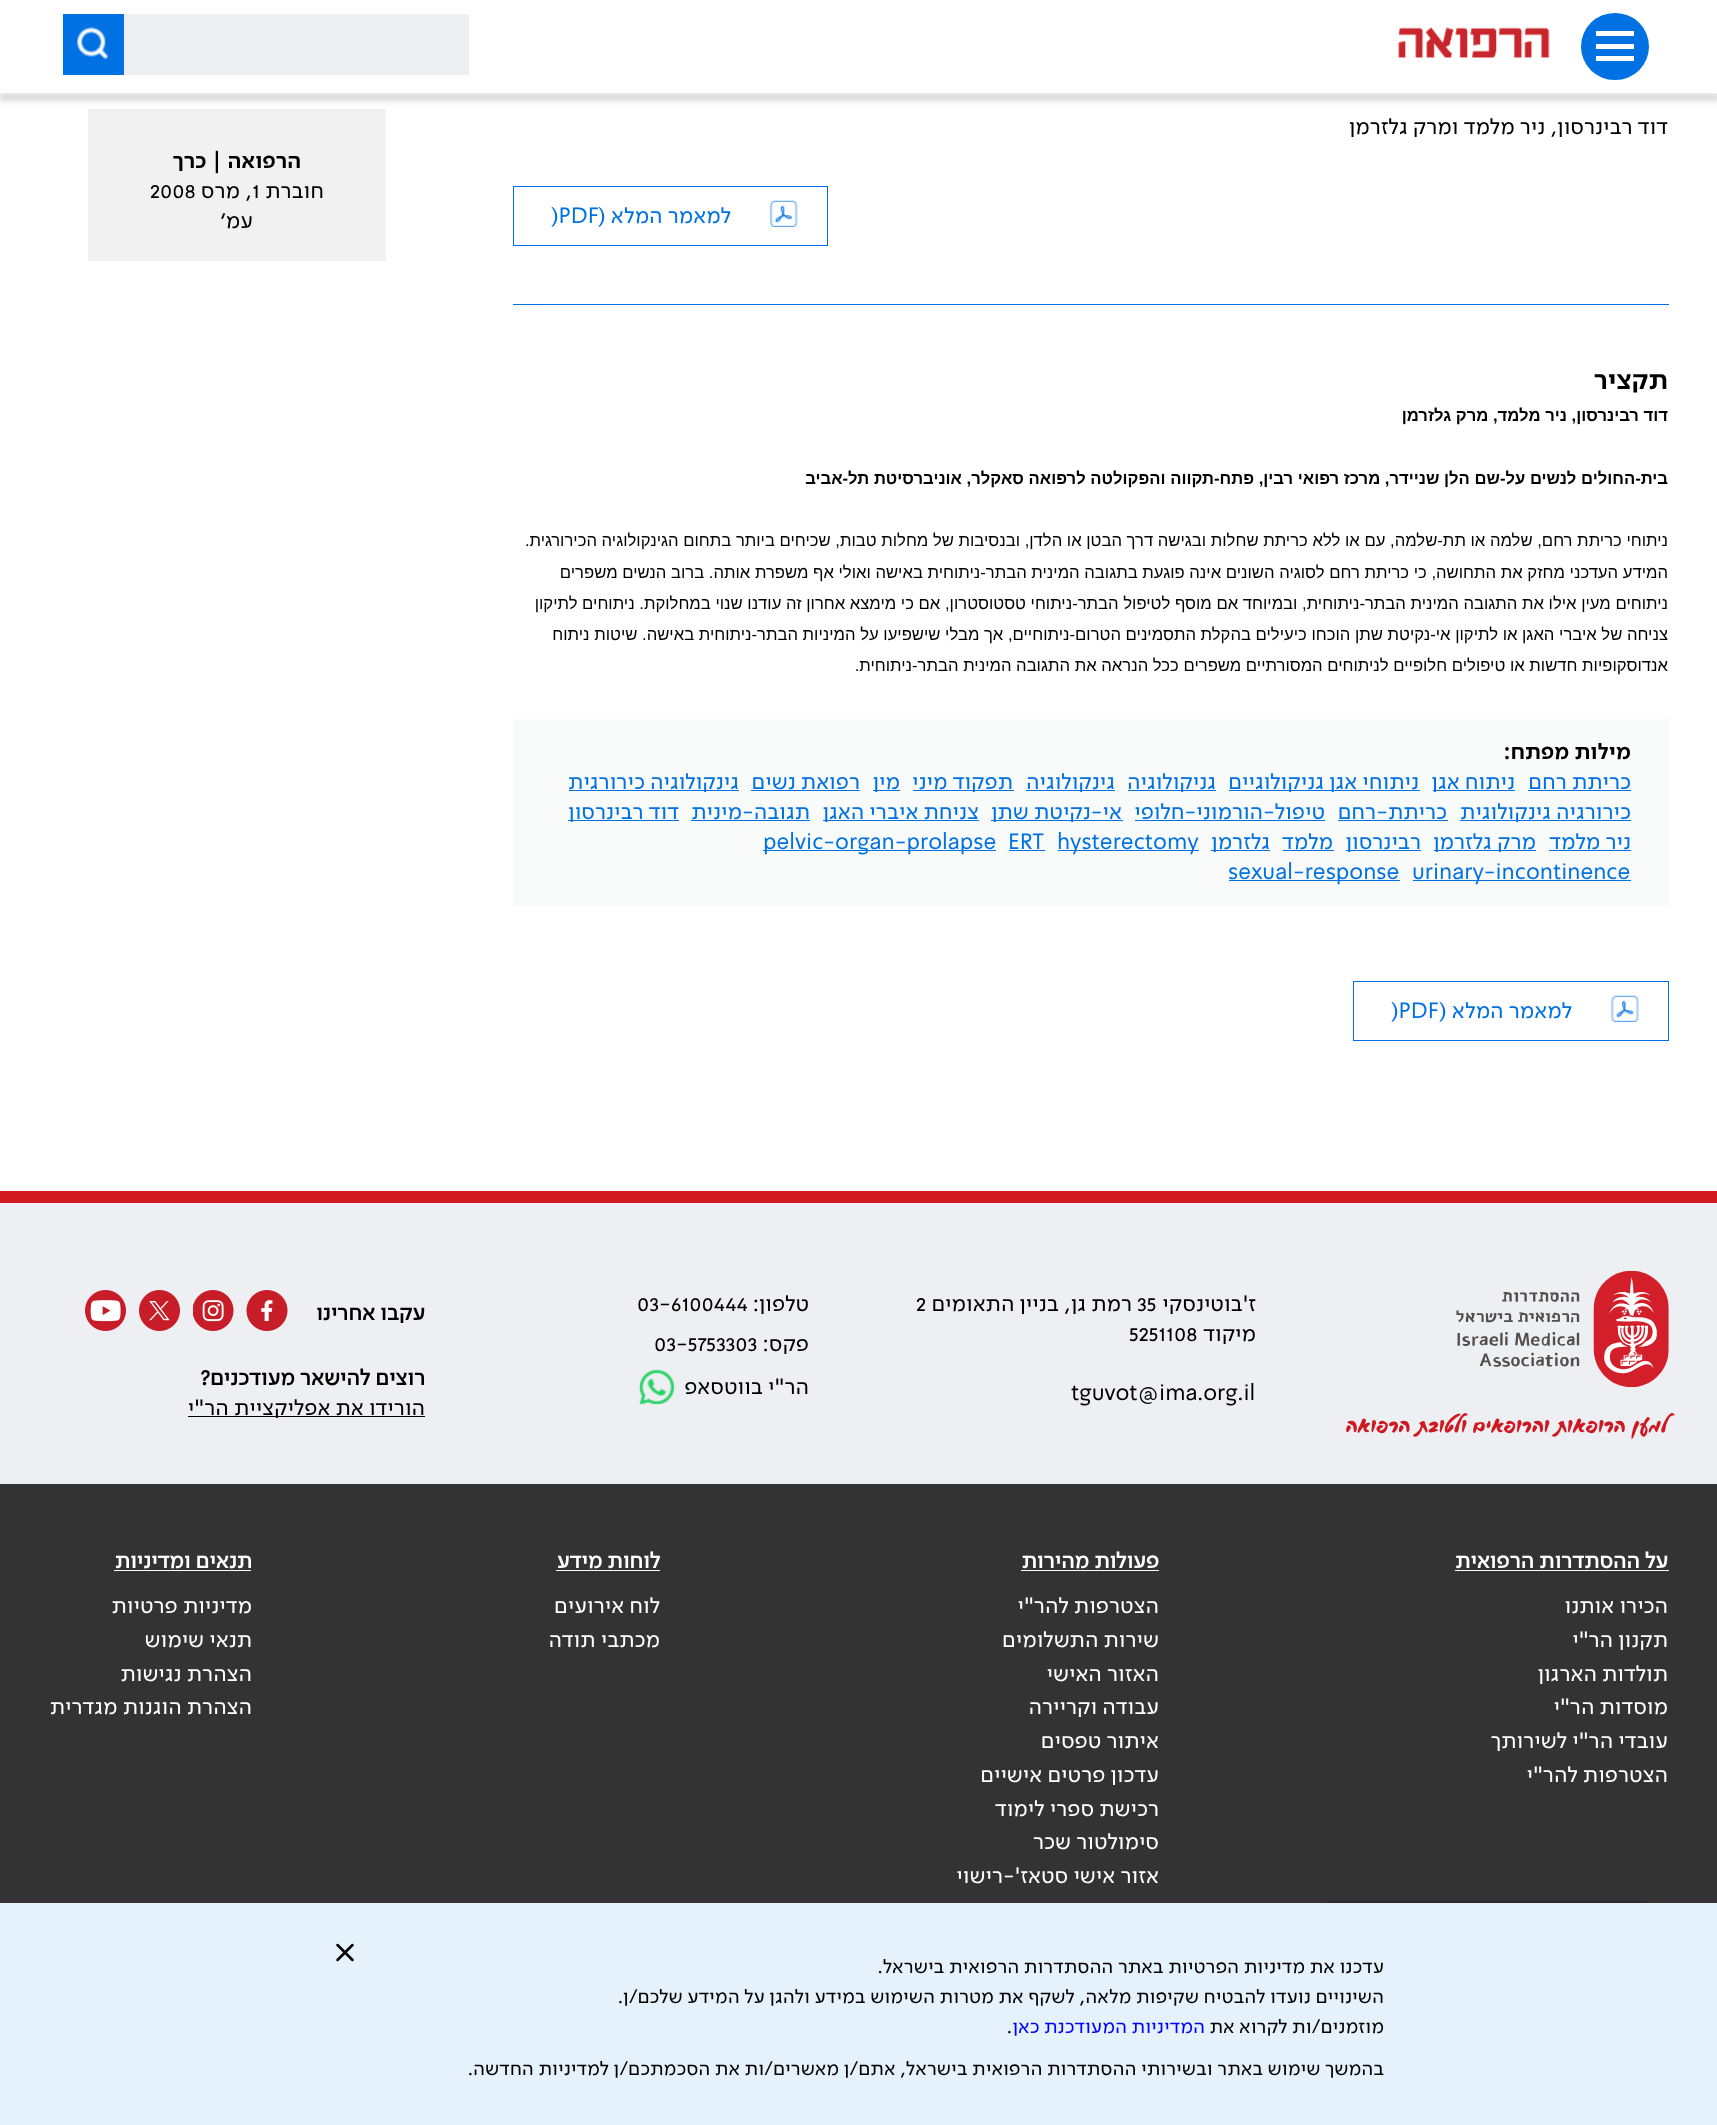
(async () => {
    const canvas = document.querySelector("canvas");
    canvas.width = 1717;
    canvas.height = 2125;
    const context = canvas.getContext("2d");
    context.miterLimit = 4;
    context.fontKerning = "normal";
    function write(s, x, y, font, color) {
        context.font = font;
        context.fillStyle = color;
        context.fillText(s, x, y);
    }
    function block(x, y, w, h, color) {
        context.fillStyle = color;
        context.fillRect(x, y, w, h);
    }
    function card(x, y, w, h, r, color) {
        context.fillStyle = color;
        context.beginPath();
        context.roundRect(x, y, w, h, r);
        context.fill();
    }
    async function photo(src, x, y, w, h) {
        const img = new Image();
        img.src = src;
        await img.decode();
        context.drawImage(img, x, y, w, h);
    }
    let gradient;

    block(0, 0, 1717, 2125, "rgb(255, 255, 255)");
    card(1581, 13, 68, 67, 33.5, "rgb(0, 113, 226)");
    block(1596, 56, 38, 5, "rgb(255, 255, 255)");
    block(1596, 31, 38, 5, "rgb(255, 255, 255)");
    block(1596, 44, 38, 5, "rgb(255, 255, 255)");
    await photo("media/1.png", 1398, 27, 152, 31);
    block(124, 14, 345, 61, "rgb(238, 239, 243)");
    block(63, 14, 61, 61, "rgb(0, 113, 226)");
    await photo("media/2.png", 77, 27, 32, 33);
    block(88, 109, 298, 152, "rgb(241, 241, 241)");
    context.save();
    context.beginPath();
    context.moveTo(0, 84);
    context.lineTo(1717, 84);
    context.lineTo(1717, 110);
    context.lineTo(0, 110);
    context.closePath();
    context.moveTo(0, 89);
    context.lineTo(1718, 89);
    context.lineTo(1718, 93);
    context.lineTo(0, 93);
    context.closePath();
    context.clip("evenodd");
    context.fillStyle = "rgba(0, 0, 0, 0.2)";
    context.filter = "blur(3px)";
    context.beginPath();
    context.rect(-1, 94, 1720, 6);
    context.fill();
    context.filter = "none";
    context.restore();
    context.direction = "rtl";
    write("דוד רבינרסון, ניר מלמד ומרק גלזרמן", 1668, 134, "22.5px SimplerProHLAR", "rgb(0, 0, 0)");
    await photo("media/3.png", 770, 200, 28, 27);
    context.strokeStyle = "rgb(0, 113, 227)";
    context.strokeRect(513.5, 186.5, 314, 59);
    write("למאמר המלא (", 731, 223, "22.5px SimplerProHLAR", "rgb(0, 113, 227)");
    context.direction = "ltr";
    write(")PDF", 551, 223, "22.5px SimplerProHLAR", "rgb(0, 113, 227)");
    block(513, 304, 1156, 1, "rgb(0, 113, 227)");
    context.direction = "rtl";
    write("תקציר", 1668, 389, "bold 27.5px SimplerProHLAR", "rgb(0, 0, 0)");
    write("דוד רבינרסון, ניר מלמד, מרק גלזרמן", 1668, 421, "bold 16.67px Liberation Sans", "rgb(0, 0, 0)");
    write("בית-החולים לנשים על-שם הלן שניידר, מרכז רפואי רבין, פתח-תקווה והפקולטה לרפואה סאקלר, אוניברסיטת תל-אביב", 1668, 484, "bold 16.67px Liberation Sans", "rgb(0, 0, 0)");
    write("ניתוחי כריתת רחם, שלמה או תת-שלמה, עם או ללא כריתת שחלות ובגישה דרך הבטן או הלדן, ובנסיבות של מחלות טבות, שכיחים ביותר בתחום הגינקולוגיה הכירורגית.", 1668, 546, "16.67px Liberation Sans", "rgb(0, 0, 0)");
    write("המידע העדכני מחזק את התחושה, כי כריתת רחם לסוגיה השונים אינה פוגעת בתגובה המינית הבתר-ניתוחית באישה ואולי אף משפרת אותה. ברוב הנשים משפרים", 1668, 578, "16.67px Liberation Sans", "rgb(0, 0, 0)");
    write("ניתוחים מעין אילו את התגובה המינית הבתר-ניתוחית, ובמיוחד אם מוסף לטיפול הבתר-ניתוחי טסטוסטרון, אם כי מימצא אחרון זה עודנו שנוי במחלוקת. ניתוחים לתיקון", 1668, 609, "16.67px Liberation Sans", "rgb(0, 0, 0)");
    write("צניחה של איברי האגן או לתיקון אי-נקיטת שתן הוכחו כיעילים בהקלת התסמינים הטרום-ניתוחיים, אך מבלי שישפיעו על המיניות הבתר-ניתוחית באישה. שיטות ניתוח", 1668, 640, "16.67px Liberation Sans", "rgb(0, 0, 0)");
    write("אנדוסקופיות חדשות או טיפולים חלופיים לניתוחים המסורתיים משפרים ככל הנראה את התגובה המינית הבתר-ניתוחית.", 1668, 671, "16.67px Liberation Sans", "rgb(0, 0, 0)");
    block(513, 719, 1156, 187, "rgb(249, 250, 250)");
    write("מילות מפתח:", 1631, 759, "bold 22.5px SimplerProHLAR", "rgb(0, 0, 0)");
    write("כריתת רחם", 1631, 789, "22.5px SimplerProHLAR", "rgb(0, 113, 227)");
    block(1528, 790, 103, 1, "rgb(0, 113, 227)");
    block(1433, 790, 82, 1, "rgb(0, 113, 227)");
    write("ניתוח אגן", 1515, 789, "22.5px SimplerProHLAR", "rgb(0, 113, 227)");
    block(1229, 790, 191, 1, "rgb(0, 113, 227)");
    write("ניתוחי אגן גניקולוגיים", 1419, 789, "22.5px SimplerProHLAR", "rgb(0, 113, 227)");
    block(1128, 790, 88, 1, "rgb(0, 113, 227)");
    write("גניקולוגיה", 1216, 789, "22.5px SimplerProHLAR", "rgb(0, 113, 227)");
    block(1026, 790, 89, 1, "rgb(0, 113, 227)");
    write("גינקולוגיה", 1115, 789, "22.5px SimplerProHLAR", "rgb(0, 113, 227)");
    block(913, 790, 101, 1, "rgb(0, 113, 227)");
    write("תפקוד מיני", 1013, 789, "22.5px SimplerProHLAR", "rgb(0, 113, 227)");
    block(873, 790, 27, 1, "rgb(0, 113, 227)");
    write("מין", 900, 789, "22.5px SimplerProHLAR", "rgb(0, 113, 227)");
    write("רפואת נשים", 860, 789, "22.5px SimplerProHLAR", "rgb(0, 113, 227)");
    block(751, 790, 109, 1, "rgb(0, 113, 227)");
    block(569, 790, 170, 1, "rgb(0, 113, 227)");
    write("גינקולוגיה כירורגית", 739, 789, "22.5px SimplerProHLAR", "rgb(0, 113, 227)");
    block(1460, 820, 171, 1, "rgb(0, 113, 227)");
    write("כירורגיה גינקולוגית", 1631, 819, "22.5px SimplerProHLAR", "rgb(0, 113, 227)");
    write("כריתת-רחם", 1447, 819, "22.5px SimplerProHLAR", "rgb(0, 113, 227)");
    block(1338, 820, 110, 1, "rgb(0, 113, 227)");
    write("טיפול-הורמוני-חלופי", 1325, 819, "22.5px SimplerProHLAR", "rgb(0, 113, 227)");
    block(1135, 820, 190, 1, "rgb(0, 113, 227)");
    block(991, 820, 132, 1, "rgb(0, 113, 227)");
    write("אי-נקיטת שתן", 1122, 819, "22.5px SimplerProHLAR", "rgb(0, 113, 227)");
    block(823, 820, 156, 1, "rgb(0, 113, 227)");
    write("צניחת איברי האגן", 979, 819, "22.5px SimplerProHLAR", "rgb(0, 113, 227)");
    write("תגובה-מינית", 810, 819, "22.5px SimplerProHLAR", "rgb(0, 113, 227)");
    block(691, 820, 119, 1, "rgb(0, 113, 227)");
    block(568, 820, 111, 1, "rgb(0, 113, 227)");
    write("דוד רבינרסון", 679, 819, "22.5px SimplerProHLAR", "rgb(0, 113, 227)");
    write("ניר מלמד", 1631, 849, "22.5px SimplerProHLAR", "rgb(0, 113, 227)");
    block(1549, 850, 82, 1, "rgb(0, 113, 227)");
    block(1434, 850, 102, 1, "rgb(0, 113, 227)");
    write("מרק גלזרמן", 1536, 849, "22.5px SimplerProHLAR", "rgb(0, 113, 227)");
    block(1346, 850, 75, 1, "rgb(0, 113, 227)");
    write("רבינרסון", 1421, 849, "22.5px SimplerProHLAR", "rgb(0, 113, 227)");
    write("מלמד", 1333, 849, "22.5px SimplerProHLAR", "rgb(0, 113, 227)");
    block(1283, 850, 51, 1, "rgb(0, 113, 227)");
    block(1211, 850, 59, 1, "rgb(0, 113, 227)");
    write("גלזרמן", 1270, 849, "22.5px SimplerProHLAR", "rgb(0, 113, 227)");
    block(1058, 850, 141, 1, "rgb(0, 113, 227)");
    context.direction = "ltr";
    write("hysterectomy", 1057, 849, "22.5px SimplerProHLAR", "rgb(0, 113, 227)");
    write("ERT", 1008, 849, "22.5px SimplerProHLAR", "rgb(0, 113, 227)");
    block(1009, 850, 36, 1, "rgb(0, 113, 227)");
    block(763, 850, 233, 1, "rgb(0, 113, 227)");
    write("pelvic-organ-prolapse", 763, 849, "22.5px SimplerProHLAR", "rgb(0, 113, 227)");
    block(1413, 880, 218, 1, "rgb(0, 113, 227)");
    write("urinary-incontinence", 1412, 879, "22.5px SimplerProHLAR", "rgb(0, 113, 227)");
    block(1229, 880, 171, 1, "rgb(0, 113, 227)");
    write("sexual-response", 1228, 879, "22.5px SimplerProHLAR", "rgb(0, 113, 227)");
    await photo("media/4.png", 1611, 995, 28, 27);
    context.strokeRect(1353.5, 981.5, 315, 59);
    context.direction = "rtl";
    write("למאמר המלא (", 1572, 1018, "22.5px SimplerProHLAR", "rgb(0, 113, 227)");
    context.direction = "ltr";
    write(")PDF", 1391, 1018, "22.5px SimplerProHLAR", "rgb(0, 113, 227)");
    context.direction = "rtl";
    write("הרפואה | כרך", 301, 168, "bold 22.5px SimplerProHLAR", "rgb(0, 0, 0)");
    write("חוברת", 324, 198, "22.5px SimplerProHLAR", "rgb(0, 0, 0)");
    context.direction = "ltr";
    write("1", 252, 198, "22.5px SimplerProHLAR", "rgb(0, 0, 0)");
    context.direction = "rtl";
    write(", מרס", 252, 198, "22.5px SimplerProHLAR", "rgb(0, 0, 0)");
    context.direction = "ltr";
    write("2008", 150, 198, "22.5px SimplerProHLAR", "rgb(0, 0, 0)");
    context.direction = "rtl";
    write("עמ׳", 253, 228, "22.5px SimplerProHLAR", "rgb(0, 0, 0)");
    block(0, 1191, 1717, 12, "rgb(210, 25, 33)");
    block(0, 1203, 1717, 281, "rgb(238, 239, 243)");
    write("ז'בוטינסקי", 1256, 1311, "22.5px SimplerProHLAR", "rgb(0, 0, 0)");
    context.direction = "ltr";
    write("35", 1137, 1311, "22.5px SimplerProHLAR", "rgb(0, 0, 0)");
    context.direction = "rtl";
    write("רמת גן, בניין התאומים", 1132, 1311, "22.5px SimplerProHLAR", "rgb(0, 0, 0)");
    context.direction = "ltr";
    write("2", 916, 1311, "22.5px SimplerProHLAR", "rgb(0, 0, 0)");
    context.direction = "rtl";
    write("מיקוד", 1256, 1341, "22.5px SimplerProHLAR", "rgb(0, 0, 0)");
    context.direction = "ltr";
    write("5251108", 1129, 1341, "22.5px SimplerProHLAR", "rgb(0, 0, 0)");
    write("tguvot@ima.org.il", 1071, 1400, "22.5px SimplerProHLAR", "rgb(0, 0, 0)");
    await photo("media/5.png", 1456, 1271, 213, 116);
    context.direction = "rtl";
    write("למען הרופאות והרופאים ולטובת הרפואה", 1668, 1432, "30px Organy", "rgb(206, 25, 33)");
    write("טלפון:", 809, 1311, "22.5px SimplerProHLAR", "rgb(0, 0, 0)");
    context.direction = "ltr";
    write("03-6100444", 637, 1311, "22.5px SimplerProHLAR", "rgb(0, 0, 0)");
    context.direction = "rtl";
    write("פקס:", 809, 1351, "22.5px SimplerProHLAR", "rgb(0, 0, 0)");
    context.direction = "ltr";
    write("03-5753303", 654, 1351, "22.5px SimplerProHLAR", "rgb(0, 0, 0)");
    await photo("media/6.png", 638, 1369, 37, 36);
    context.direction = "rtl";
    write("הר\"י בווטסאפ", 809, 1394, "22.5px SimplerProHLAR", "rgb(0, 0, 0)");
    write("עקבו אחרינו", 425, 1320, "bold 22.5px 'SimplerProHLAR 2'", "rgb(0, 0, 0)");
    await photo("media/7.png", 246, 1290, 42, 41);
    await photo("media/8.png", 193, 1290, 41, 41);
    await photo("media/9.png", 139, 1290, 41, 41);
    await photo("media/10.png", 85, 1290, 41, 41);
    write("רוצים להישאר מעודכנים?", 425, 1385, "bold 22.5px 'SimplerProHLAR 2'", "rgb(0, 0, 0)");
    block(188, 1416, 237, 1, "rgb(0, 0, 0)");
    write("הורידו את אפליקציית הר\"י", 425, 1415, "22.5px SimplerProHLAR", "rgb(0, 0, 0)");
    block(0, 1484, 1717, 419, "rgb(51, 51, 51)");
    write("על ההסתדרות הרפואית", 1668, 1568, "bold 22.5px 'SimplerProHLAR 2'", "rgb(255, 255, 255)");
    block(1455, 1570, 214, 1, "rgb(255, 255, 255)");
    write("הכירו אותנו", 1668, 1613, "22.5px SimplerProHLAR", "rgb(255, 255, 255)");
    write("תקנון הר\"י", 1668, 1647, "22.5px SimplerProHLAR", "rgb(255, 255, 255)");
    write("תולדות הארגון", 1668, 1681, "22.5px SimplerProHLAR", "rgb(255, 255, 255)");
    write("מוסדות הר\"י", 1668, 1714, "22.5px SimplerProHLAR", "rgb(255, 255, 255)");
    write("עובדי הר\"י לשירותך", 1668, 1748, "22.5px SimplerProHLAR", "rgb(255, 255, 255)");
    write("הצטרפות להר\"י", 1668, 1782, "22.5px SimplerProHLAR", "rgb(255, 255, 255)");
    write("פעולות מהירות", 1159, 1568, "bold 22.5px 'SimplerProHLAR 2'", "rgb(255, 255, 255)");
    block(1021, 1570, 138, 1, "rgb(255, 255, 255)");
    write("הצטרפות להר\"י", 1159, 1613, "22.5px SimplerProHLAR", "rgb(255, 255, 255)");
    write("שירות התשלומים", 1159, 1647, "22.5px SimplerProHLAR", "rgb(255, 255, 255)");
    write("האזור האישי", 1159, 1681, "22.5px SimplerProHLAR", "rgb(255, 255, 255)");
    write("עבודה וקריירה", 1159, 1714, "22.5px SimplerProHLAR", "rgb(255, 255, 255)");
    write("איתור טפסים", 1159, 1748, "22.5px SimplerProHLAR", "rgb(255, 255, 255)");
    write("עדכון פרטים אישיים", 1159, 1782, "22.5px SimplerProHLAR", "rgb(255, 255, 255)");
    write("רכישת ספרי לימוד", 1159, 1816, "22.5px SimplerProHLAR", "rgb(255, 255, 255)");
    write("סימולטור שכר", 1159, 1849, "22.5px SimplerProHLAR", "rgb(255, 255, 255)");
    write("אזור אישי סטאז'-רישוי", 1159, 1883, "22.5px SimplerProHLAR", "rgb(255, 255, 255)");
    write("לוחות מידע", 660, 1568, "bold 22.5px 'SimplerProHLAR 2'", "rgb(255, 255, 255)");
    block(556, 1570, 104, 1, "rgb(255, 255, 255)");
    write("לוח אירועים", 660, 1613, "22.5px SimplerProHLAR", "rgb(255, 255, 255)");
    write("מכתבי תודה", 660, 1647, "22.5px SimplerProHLAR", "rgb(255, 255, 255)");
    write("תנאים ומדיניות", 252, 1568, "bold 22.5px 'SimplerProHLAR 2'", "rgb(255, 255, 255)");
    block(114, 1570, 137, 1, "rgb(255, 255, 255)");
    write("מדיניות פרטיות", 252, 1613, "22.5px SimplerProHLAR", "rgb(255, 255, 255)");
    write("תנאי שימוש", 252, 1647, "22.5px SimplerProHLAR", "rgb(255, 255, 255)");
    write("הצהרת נגישות", 252, 1681, "22.5px SimplerProHLAR", "rgb(255, 255, 255)");
    write("הצהרת הוגנות מגדרית", 252, 1714, "22.5px SimplerProHLAR", "rgb(255, 255, 255)");
    gradient = context.createLinearGradient(1486, 1901, 1486, 2088);
    gradient.addColorStop(0, "rgb(47, 41, 41)");
    gradient.addColorStop(1, "rgb(17, 17, 17)");
    context.fillStyle = gradient;
    context.beginPath();
    context.roundRect(1316, 1901, 339, 187, 14);
    context.fill();
    block(0, 1903, 1717, 222, "rgb(229, 241, 251)");
    context.beginPath();
    context.moveTo(352.5, 1945);
    context.lineTo(337.5, 1960);
    context.moveTo(337.5, 1945);
    context.lineTo(352.5, 1960);
    context.strokeStyle = "rgb(0, 0, 0)";
    context.lineWidth = 2.5;
    context.lineCap = "round";
    context.lineJoin = "round";
    context.stroke();
    write("עדכנו את מדיניות הפרטיות באתר ההסתדרות הרפואית בישראל.", 1384, 1973, "20px SimplerProHLAR", "rgb(0, 0, 0)");
    write("השינויים נועדו להבטיח שקיפות מלאה, לשקף את מטרות השימוש במידע ולהגן על המידע שלכם/ן.", 1384, 2003, "20px SimplerProHLAR", "rgb(0, 0, 0)");
    write("מוזמנים/ות לקרוא את", 1384, 2033, "20px SimplerProHLAR", "rgb(0, 0, 0)");
    write("המדיניות המעודכנת כאן", 1205, 2033, "20px SimplerProHLAR", "rgb(0, 0, 255)");
    context.direction = "ltr";
    write(".", 1007, 2033, "20px SimplerProHLAR", "rgb(0, 0, 0)");
    context.direction = "rtl";
    write("בהמשך שימוש באתר ובשירותי ההסתדרות הרפואית בישראל, אתם/ן מאשרים/ות את הסכמתכם/ן למדיניות החדשה.", 1384, 2075, "20px SimplerProHLAR", "rgb(0, 0, 0)");
})();
